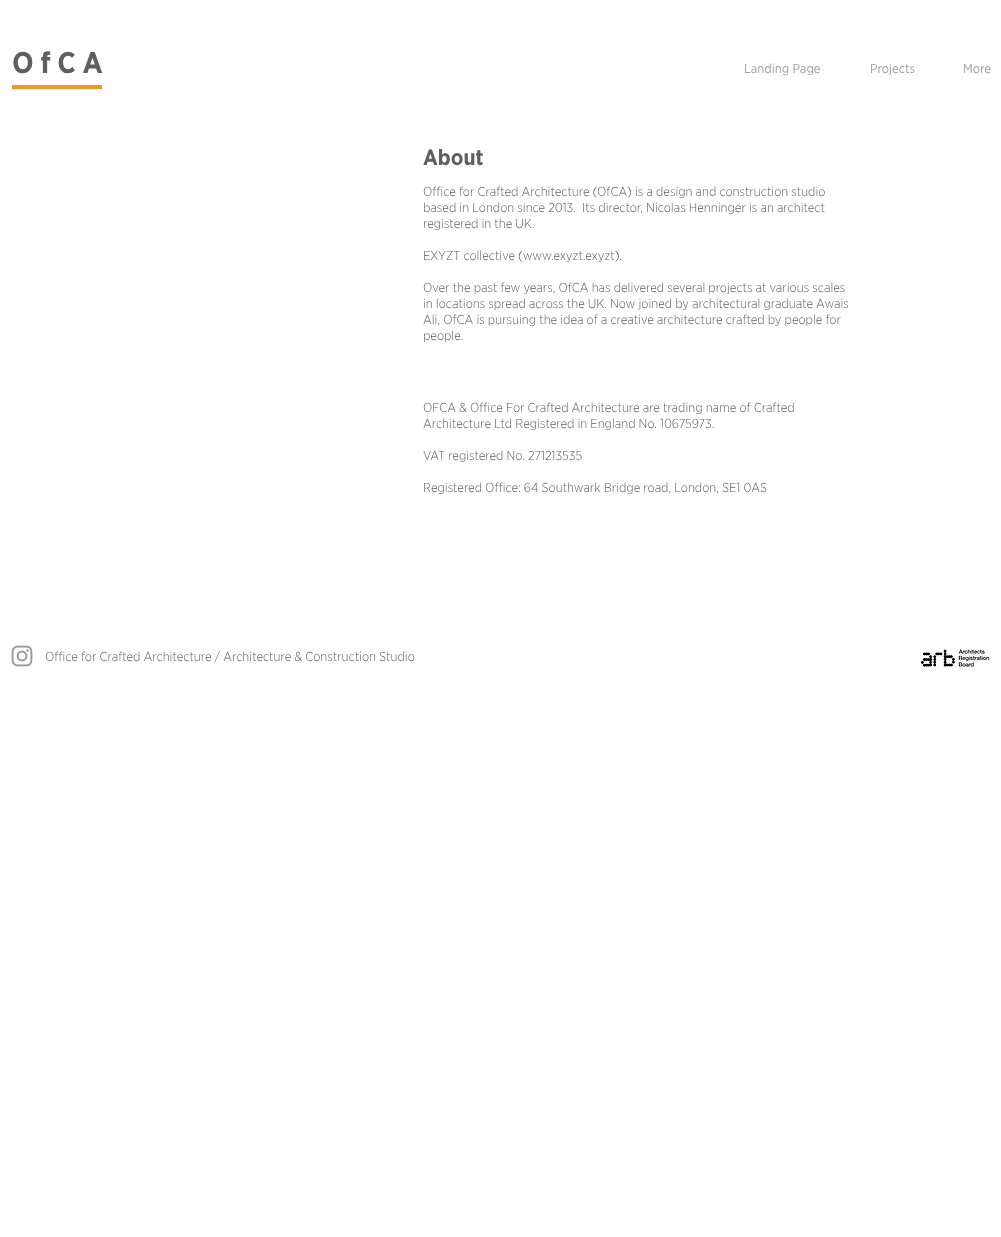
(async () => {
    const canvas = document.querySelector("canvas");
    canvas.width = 1001;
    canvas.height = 1237;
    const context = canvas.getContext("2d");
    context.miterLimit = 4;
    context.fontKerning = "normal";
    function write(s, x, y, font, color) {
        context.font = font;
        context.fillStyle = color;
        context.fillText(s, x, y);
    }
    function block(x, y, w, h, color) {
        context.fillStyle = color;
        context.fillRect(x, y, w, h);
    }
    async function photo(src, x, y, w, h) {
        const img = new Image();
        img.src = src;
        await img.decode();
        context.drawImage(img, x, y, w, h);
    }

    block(0, 0, 1001, 1237, "rgb(255, 255, 255)");
    write("O f C A", 12, 73, "bold 30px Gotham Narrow", "rgb(96, 94, 94)");
    write("Landing Page", 744, 73, "13px Gotham Narrow", "rgb(160, 160, 159)");
    write("Projects", 870, 73, "13px Gotham Narrow", "rgb(160, 160, 159)");
    write("More", 963, 73, "13px Gotham Narrow", "rgb(160, 160, 159)");
    block(12, 85, 90, 4, "rgb(247, 148, 30)");
    write("About", 423, 165, "bold 22px Gotham Narrow", "rgb(96, 94, 94)");
    write("Office for Crafted Architecture (OfCA) is a design and construction studio", 423, 196, "300 13px Gotham Narrow", "rgb(96, 94, 94)");
    write("based in London since 2013.  Its director, Nicolas Henninger is an architect", 423, 212, "300 13px Gotham Narrow", "rgb(96, 94, 94)");
    write("registered in the UK.", 423, 228, "300 13px Gotham Narrow", "rgb(96, 94, 94)");
    write("EXYZT collective (www.exyzt.exyzt).", 423, 260, "300 13px Gotham Narrow", "rgb(96, 94, 94)");
    write("Over the past few years, OfCA has delivered several projects at various scales", 423, 292, "300 13px Gotham Narrow", "rgb(96, 94, 94)");
    write("in locations spread across the UK. Now joined by architectural graduate Awais", 423, 308, "300 13px Gotham Narrow", "rgb(96, 94, 94)");
    write("Ali, OfCA is pursuing the idea of a creative architecture crafted by people for", 423, 324, "300 13px Gotham Narrow", "rgb(96, 94, 94)");
    write("people.", 423, 340, "300 13px Gotham Narrow", "rgb(96, 94, 94)");
    write("OFCA & Office For Crafted Architecture are trading name of Crafted", 423, 412, "300 13px Gotham Narrow", "rgb(96, 94, 94)");
    write("Architecture Ltd Registered in England No. 10675973.", 423, 428, "300 13px Gotham Narrow", "rgb(96, 94, 94)");
    write("VAT registered No. 271213535", 423, 460, "300 13px Gotham Narrow", "rgb(96, 94, 94)");
    write("Registered Office: 64 Southwark Bridge road, London, SE1 0AS", 423, 492, "300 13px Gotham Narrow", "rgb(96, 94, 94)");
    await photo("media/1.png", 11, 645, 22, 22);
    write("Office for Crafted Architecture / Architecture & Construction Studio", 45, 661, "300 13px Gotham Narrow", "rgb(96, 94, 94)");
    await photo("media/2.png", 919, 646, 72, 24);
})();
